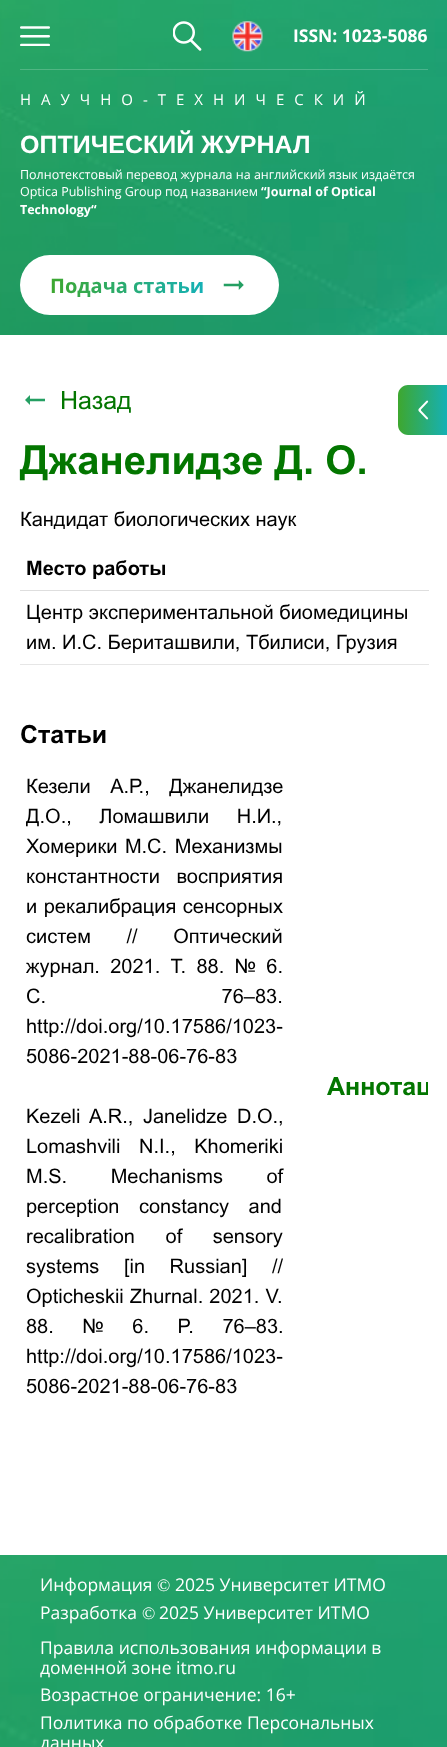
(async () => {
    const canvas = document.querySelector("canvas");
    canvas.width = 447;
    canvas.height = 1747;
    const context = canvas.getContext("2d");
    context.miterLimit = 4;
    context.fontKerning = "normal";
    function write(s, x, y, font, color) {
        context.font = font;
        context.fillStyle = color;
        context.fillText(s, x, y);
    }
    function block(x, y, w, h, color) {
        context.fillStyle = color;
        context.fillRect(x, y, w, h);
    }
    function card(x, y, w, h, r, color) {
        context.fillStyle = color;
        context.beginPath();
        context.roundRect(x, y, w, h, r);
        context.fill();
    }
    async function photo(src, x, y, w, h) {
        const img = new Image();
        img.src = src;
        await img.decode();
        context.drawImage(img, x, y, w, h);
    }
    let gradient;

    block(0, 0, 447, 1747, "rgb(255, 255, 255)");
    await photo("media/1.png", 0, 0, 447, 335);
    block(20, 69, 408, 1, "rgba(255, 255, 255, 0.2)");
    await photo("media/2.png", 20, 26, 30, 20);
    await photo("media/3.png", 173, 21, 29, 30);
    await photo("media/4.png", 232, 21, 31, 31);
    write("ISSN: 1023-5086", 293, 42, "bold 17.5px Open Sans", "rgb(255, 255, 255)");
    context.letterSpacing = "10px";
    write("НАУЧНО-ТЕХНИЧЕСКИЙ", 20, 105, "15px 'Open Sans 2'", "rgb(255, 255, 255)");
    context.letterSpacing = "0px";
    write("ОПТИЧЕСКИЙ ЖУРНАЛ", 20, 153, "bold 25px Liberation Sans", "rgb(255, 255, 255)");
    write("Полнотекстовый перевод журнала на английский язык издаётся", 20, 179, "12.5px 'Open Sans 2'", "rgb(255, 255, 255)");
    write("Optica Publishing Group под названием", 20, 196, "12.5px 'Open Sans 2'", "rgb(255, 255, 255)");
    write("“Journal of Optical", 261, 196, "bold 12.5px Open Sans", "rgb(255, 255, 255)");
    write("Technology“", 20, 214, "bold 12.5px Open Sans", "rgb(255, 255, 255)");
    card(20, 255, 259, 60, 30, "rgb(255, 255, 255)");
    context.font = "bold 20px Open Sans";
    gradient = context.createLinearGradient(50, 285, 204, 285);
    gradient.addColorStop(0, "rgb(62, 167, 47)");
    gradient.addColorStop(1, "rgb(21, 177, 183)");
    context.fillStyle = gradient;
    context.fillText("Подача статьи", 50, 293);
    await photo("media/5.png", 223, 280, 21, 10);
    gradient = context.createLinearGradient(398, 410, 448, 410);
    gradient.addColorStop(0, "rgb(62, 167, 47)");
    gradient.addColorStop(1, "rgb(21, 177, 183)");
    context.fillStyle = gradient;
    context.beginPath();
    context.moveTo(408, 385);
    context.lineTo(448, 385);
    context.lineTo(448, 435);
    context.lineTo(408, 435);
    context.bezierCurveTo(402.5, 435, 398, 430.5, 398, 425);
    context.lineTo(398, 395);
    context.bezierCurveTo(398, 389.5, 402.5, 385, 408, 385);
    context.closePath();
    context.fill();
    await photo("media/6.png", 418, 400, 11, 20);
    await photo("media/7.png", 25, 395, 20, 10);
    write("Назад", 60, 409, "25px Arial", "rgb(3, 118, 0)");
    write("Джанелидзе Д. О.", 20, 474, "bold 40px Arial", "rgb(3, 118, 0)");
    write("Кандидат биологических наук", 20, 526, "20px Arial", "rgb(0, 0, 0)");
    block(20, 590, 409, 1, "rgb(222, 222, 222)");
    write("Место работы", 26, 575, "bold 20px Arial", "rgb(0, 0, 0)");
    write("Центр экспериментальной биомедицины", 26, 619, "20px Arial", "rgb(0, 0, 0)");
    write("им. И.С. Бериташвили, Тбилиси, Грузия", 26, 649, "20px Arial", "rgb(0, 0, 0)");
    block(20, 664, 409, 1, "rgb(230, 230, 230)");
    write("Статьи", 20, 743, "bold 25px Arial", "rgb(0, 0, 0)");
    context.wordSpacing = "14px";
    write("Кезели А.Р., Джанелидзе", 26, 793, "20px Arial", "rgb(0, 0, 0)");
    context.wordSpacing = "22px";
    write("Д.О., Ломашвили Н.И.,", 26, 823, "20px Arial", "rgb(0, 0, 0)");
    context.wordSpacing = "2px";
    write("Хомерики М.С. Механизмы", 26, 853, "20px Arial", "rgb(0, 0, 0)");
    context.wordSpacing = "11px";
    write("константности восприятия", 26, 883, "20px Arial", "rgb(0, 0, 0)");
    context.wordSpacing = "1px";
    write("и рекалибрация сенсорных", 26, 913, "20px Arial", "rgb(0, 0, 0)");
    context.wordSpacing = "30px";
    write("систем // Оптический", 26, 943, "20px Arial", "rgb(0, 0, 0)");
    context.wordSpacing = "4.75px";
    write("журнал. 2021. Т. 88. № 6.", 26, 973, "20px Arial", "rgb(0, 0, 0)");
    context.wordSpacing = "170px";
    write("С. 76–83.", 26, 1003, "20px Arial", "rgb(0, 0, 0)");
    context.wordSpacing = "0px";
    write("http://doi.org/10.17586/1023-", 26, 1033, "20px Arial", "rgb(0, 0, 0)");
    write("5086-2021-88-06-76-83", 26, 1063, "20px Arial", "rgb(0, 0, 0)");
    context.wordSpacing = "4px";
    write("Kezeli A.R., Janelidze D.O.,", 26, 1123, "20px Arial", "rgb(0, 0, 0)");
    context.wordSpacing = "13px";
    write("Lomashvili N.I., Khomeriki", 26, 1153, "20px Arial", "rgb(0, 0, 0)");
    context.wordSpacing = "38px";
    write("M.S. Mechanisms of", 26, 1183, "20px Arial", "rgb(0, 0, 0)");
    context.wordSpacing = "14px";
    write("perception constancy and", 26, 1213, "20px Arial", "rgb(0, 0, 0)");
    context.wordSpacing = "25px";
    write("recalibration of sensory", 26, 1243, "20px Arial", "rgb(0, 0, 0)");
    context.wordSpacing = "19px";
    write("systems [in Russian] //", 26, 1273, "20px Arial", "rgb(0, 0, 0)");
    context.wordSpacing = "0.5px";
    write("Opticheskii Zhurnal. 2021. V.", 26, 1303, "20px Arial", "rgb(0, 0, 0)");
    context.wordSpacing = "23px";
    write("88. № 6. P. 76–83.", 26, 1333, "20px Arial", "rgb(0, 0, 0)");
    context.wordSpacing = "0px";
    write("http://doi.org/10.17586/1023-", 26, 1363, "20px Arial", "rgb(0, 0, 0)");
    write("5086-2021-88-06-76-83", 26, 1393, "20px Arial", "rgb(0, 0, 0)");
    context.save();
    context.beginPath();
    context.rect(20, 753, 408, 667);
    context.clip();
    write("Аннотац", 327, 1095, "bold 25px Arial", "rgb(3, 118, 0)");
    context.restore();
    await photo("media/8.png", 0, 1555, 447, 192);
    write("Информация", 40, 1591, "17.5px Open Sans", "rgb(255, 255, 255)");
    write("©", 157, 1591, "17.5px Liberation Serif", "rgb(255, 255, 255)");
    write("2025 Университет ИТМО", 175, 1591, "17.5px Open Sans", "rgb(255, 255, 255)");
    write("Разработка", 40, 1619, "17.5px Open Sans", "rgb(255, 255, 255)");
    write("©", 142, 1619, "17.5px Liberation Serif", "rgb(255, 255, 255)");
    write("2025 Университет ИТМО", 159, 1619, "17.5px Open Sans", "rgb(255, 255, 255)");
    write("Правила использования информации в", 40, 1654, "17.5px Open Sans", "rgb(255, 255, 255)");
    write("доменной зоне itmo.ru", 40, 1674, "17.5px Open Sans", "rgb(255, 255, 255)");
    write("Возрастное ограничение: 16+", 40, 1701, "17.5px Open Sans", "rgb(255, 255, 255)");
    write("Политика по обработке Персональных", 40, 1729, "17.5px Open Sans", "rgb(255, 255, 255)");
    write("данных", 40, 1749, "17.5px Open Sans", "rgb(255, 255, 255)");
})();
